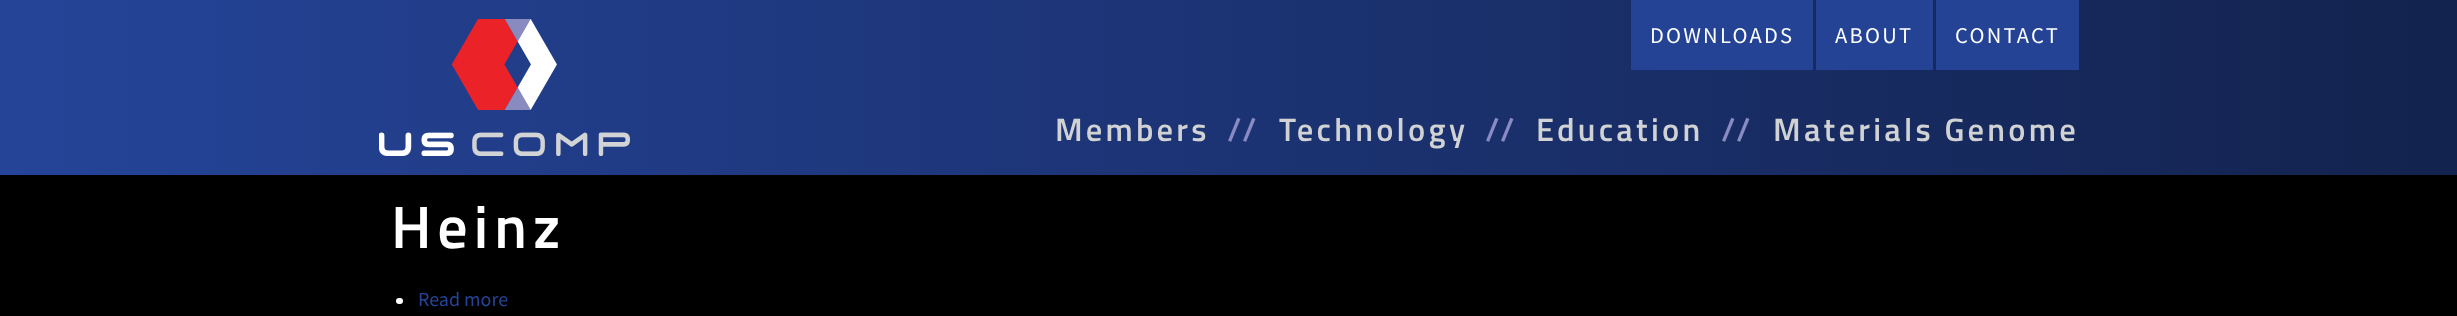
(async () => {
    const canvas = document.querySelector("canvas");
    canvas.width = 2457;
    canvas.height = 316;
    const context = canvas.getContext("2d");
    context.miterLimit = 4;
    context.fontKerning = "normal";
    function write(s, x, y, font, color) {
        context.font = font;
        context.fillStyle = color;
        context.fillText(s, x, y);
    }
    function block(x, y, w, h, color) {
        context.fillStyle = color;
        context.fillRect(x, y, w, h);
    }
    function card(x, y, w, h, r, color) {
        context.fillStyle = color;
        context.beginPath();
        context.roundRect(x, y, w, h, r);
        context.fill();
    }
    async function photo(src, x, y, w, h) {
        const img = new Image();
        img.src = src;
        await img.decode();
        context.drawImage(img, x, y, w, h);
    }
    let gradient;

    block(0, 0, 2457, 316, "rgb(0, 0, 0)");
    gradient = context.createLinearGradient(0, 88, 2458, 87);
    gradient.addColorStop(0, "rgb(37, 68, 152)");
    gradient.addColorStop(1, "rgb(19, 35, 79)");
    context.fillStyle = gradient;
    context.fillRect(0, 0, 2457, 175);
    await photo("media/1.png", 379, 19, 251, 137);
    block(1631, 0, 182, 70, "rgb(36, 67, 149)");
    context.letterSpacing = "2.25px";
    write("DOWNLOADS", 1650, 43, "22.5px Source Sans Pro", "rgb(255, 255, 255)");
    block(1816, 0, 117, 70, "rgb(36, 67, 149)");
    write("ABOUT", 1835, 43, "22.5px Source Sans Pro", "rgb(255, 255, 255)");
    block(1936, 0, 143, 70, "rgb(36, 67, 149)");
    write("CONTACT", 1955, 43, "22.5px Source Sans Pro", "rgb(255, 255, 255)");
    context.letterSpacing = "3.25px";
    write("Members", 1055, 141, "600 32.5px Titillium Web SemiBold", "rgb(209, 210, 212)");
    context.letterSpacing = "10px";
    write("//", 1227, 141, "600 32.5px Titillium Web SemiBold", "rgb(137, 139, 194)");
    context.letterSpacing = "3.25px";
    write("Technology", 1279, 141, "600 32.5px Titillium Web SemiBold", "rgb(209, 210, 212)");
    context.letterSpacing = "10px";
    write("//", 1485, 141, "600 32.5px Titillium Web SemiBold", "rgb(137, 139, 194)");
    context.letterSpacing = "3.25px";
    write("Education", 1536, 141, "600 32.5px Titillium Web SemiBold", "rgb(209, 210, 212)");
    context.letterSpacing = "10px";
    write("//", 1721, 141, "600 32.5px Titillium Web SemiBold", "rgb(137, 139, 194)");
    context.letterSpacing = "3.25px";
    write("Materials Genome", 1773, 141, "600 32.5px Titillium Web SemiBold", "rgb(209, 210, 212)");
    context.letterSpacing = "6px";
    write("Heinz", 391, 248, "600 60px Titillium Web SemiBold", "rgb(255, 255, 255)");
    card(396, 298, 7, 6, 3, "rgb(255, 255, 255)");
    context.letterSpacing = "0px";
    write("Read more", 418, 306, "20px Source Sans Pro", "rgb(37, 68, 152)");
})();
